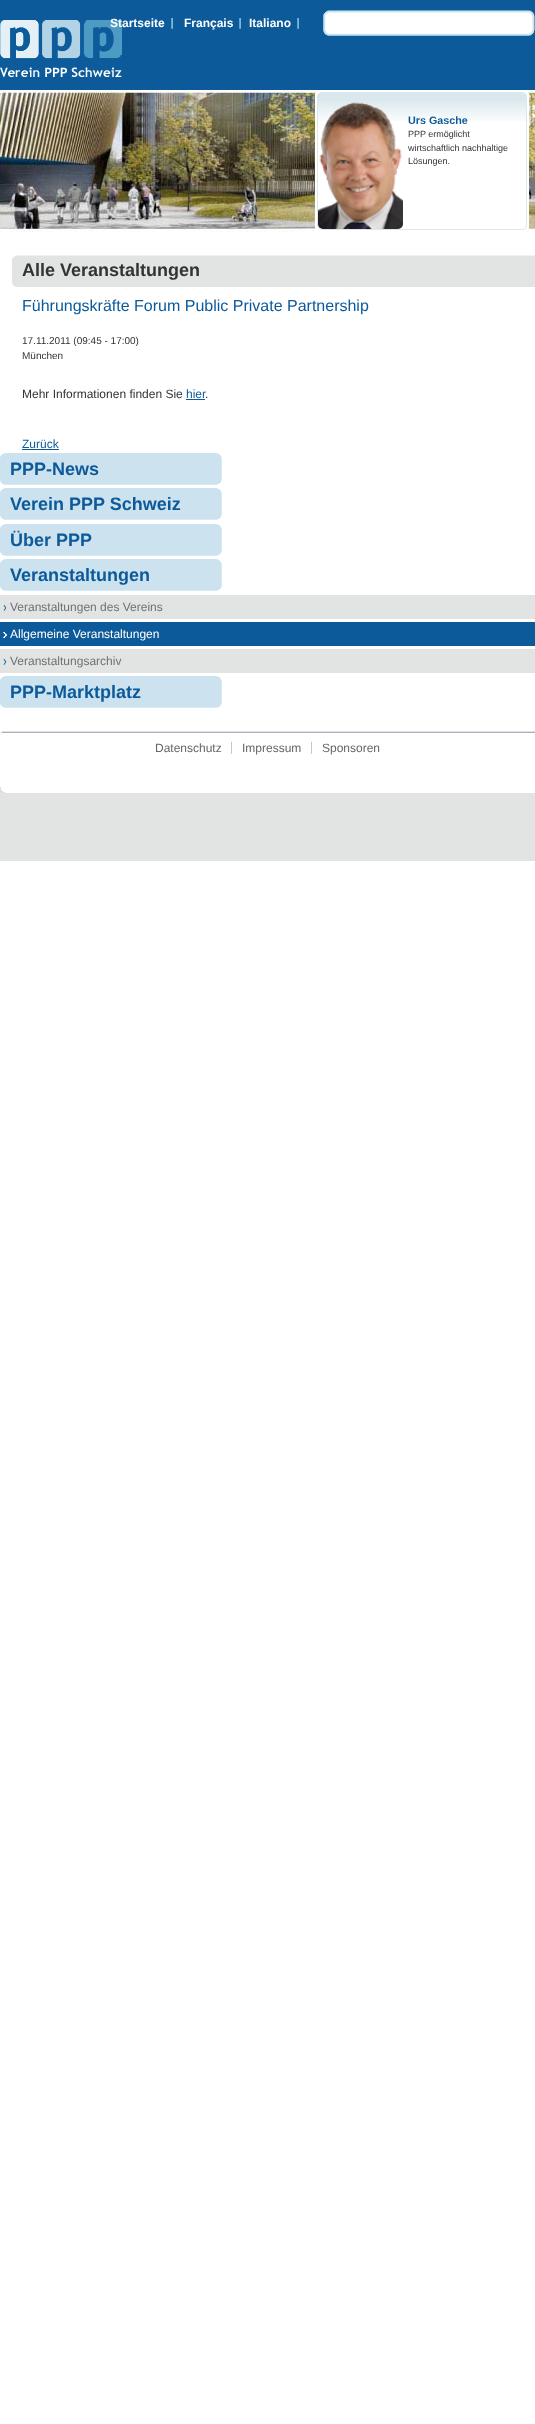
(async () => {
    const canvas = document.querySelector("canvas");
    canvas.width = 535;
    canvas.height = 2424;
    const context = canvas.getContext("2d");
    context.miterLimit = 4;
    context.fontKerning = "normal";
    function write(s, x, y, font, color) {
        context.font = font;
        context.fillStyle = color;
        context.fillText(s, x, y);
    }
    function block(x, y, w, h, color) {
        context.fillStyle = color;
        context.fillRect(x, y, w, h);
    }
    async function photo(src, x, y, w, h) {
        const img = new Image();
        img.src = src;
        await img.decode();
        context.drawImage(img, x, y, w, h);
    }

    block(0, 0, 535, 2424, "rgb(255, 255, 255)");
    block(0, 793, 535, 68, "rgb(226, 227, 227)");
    block(0, 0, 535, 90, "rgb(12, 90, 154)");
    await photo("media/1.png", 0, 20, 122, 57);
    write("Startseite", 110, 27, "bold 12px Liberation Sans", "rgb(255, 255, 255)");
    await photo("media/2.png", 171, 18, 2, 11);
    write("Français", 184, 27, "bold 12px Liberation Sans", "rgb(255, 255, 255)");
    await photo("media/2.png", 239, 18, 2, 11);
    write("Italiano", 249, 27, "bold 12px Liberation Sans", "rgb(255, 255, 255)");
    await photo("media/2.png", 297, 18, 2, 11);
    await photo("media/3.png", 323, 10, 212, 26);
    await photo("media/4.png", 0, 90, 535, 142);
    context.beginPath();
    context.roundRect(316, 91, 212, 140, 4);
    context.fill();
    context.strokeStyle = "rgb(255, 255, 255)";
    context.lineWidth = 2;
    context.stroke();
    await photo("media/5.png", 317, 93, 210, 28);
    context.beginPath();
    context.roundRect(317.5, 92.5, 209, 137, 4.5);
    context.strokeStyle = "rgb(217, 232, 237)";
    context.lineWidth = 1;
    context.stroke();
    await photo("media/6.png", 318, 102, 85, 127);
    write("Urs Gasche", 408, 124, "bold 10.75px Liberation Sans", "rgb(12, 90, 154)");
    write("PPP ermöglicht", 408, 137, "9px Liberation Sans", "rgb(51, 51, 51)");
    write("wirtschaftlich nachhaltige", 408, 151, "9px Liberation Sans", "rgb(51, 51, 51)");
    write("Lösungen.", 408, 164, "9px Liberation Sans", "rgb(51, 51, 51)");
    await photo("media/7.png", 12, 255, 523, 32);
    write("Alle Veranstaltungen", 22, 276, "bold 18px Liberation Sans", "rgb(51, 51, 51)");
    write("Führungskräfte Forum Public Private Partnership", 22, 311, "16px Liberation Sans", "rgb(12, 90, 154)");
    write("17.11.2011 (09:45 - 17:00)", 22, 344, "10px Liberation Sans", "rgb(51, 51, 51)");
    write("München", 22, 359, "10px Liberation Sans", "rgb(51, 51, 51)");
    write("Mehr Informationen finden Sie", 22, 398, "12px Liberation Sans", "rgb(51, 51, 51)");
    write("hier", 186, 398, "12px Liberation Sans", "rgb(12, 90, 154)");
    block(186, 399, 19, 1, "rgb(12, 90, 154)");
    write(".", 205, 398, "12px Liberation Sans", "rgb(51, 51, 51)");
    write("Zurück", 22, 448, "12px Liberation Sans", "rgb(12, 90, 154)");
    block(22, 449, 37, 1, "rgb(12, 90, 154)");
    await photo("media/8.png", 0, 453, 222, 32);
    write("PPP-News", 10, 475, "bold 18px Liberation Sans", "rgb(12, 90, 154)");
    await photo("media/8.png", 0, 488, 222, 32);
    write("Verein PPP Schweiz", 10, 510, "bold 18px Liberation Sans", "rgb(12, 90, 154)");
    await photo("media/8.png", 0, 524, 222, 32);
    write("Über PPP", 10, 546, "bold 18px Liberation Sans", "rgb(12, 90, 154)");
    await photo("media/8.png", 0, 559, 222, 32);
    write("Veranstaltungen", 10, 581, "bold 18px Liberation Sans", "rgb(12, 90, 154)");
    block(0, 595, 535, 24, "rgb(226, 227, 227)");
    await photo("media/9.png", 3, 605, 4, 6);
    write("Veranstaltungen des Vereins", 10, 611, "12px Liberation Sans", "rgb(112, 113, 115)");
    block(0, 622, 535, 24, "rgb(12, 90, 154)");
    await photo("media/10.png", 3, 632, 4, 6);
    write("Allgemeine Veranstaltungen", 10, 638, "12px Liberation Sans", "rgb(255, 255, 255)");
    block(0, 649, 535, 24, "rgb(226, 227, 227)");
    await photo("media/9.png", 3, 659, 4, 6);
    write("Veranstaltungsarchiv", 10, 665, "12px Liberation Sans", "rgb(112, 113, 115)");
    await photo("media/8.png", 0, 676, 222, 32);
    write("PPP-Marktplatz", 10, 698, "bold 18px Liberation Sans", "rgb(12, 90, 154)");
    await photo("media/11.png", 0, 731, 535, 62);
    write("Datenschutz", 155, 752, "12px Liberation Sans", "rgb(102, 102, 102)");
    await photo("media/12.png", 231, 741, 1, 13);
    write("Impressum", 242, 752, "12px Liberation Sans", "rgb(102, 102, 102)");
    await photo("media/12.png", 311, 741, 1, 13);
    write("Sponsoren", 322, 752, "12px Liberation Sans", "rgb(102, 102, 102)");
})();
